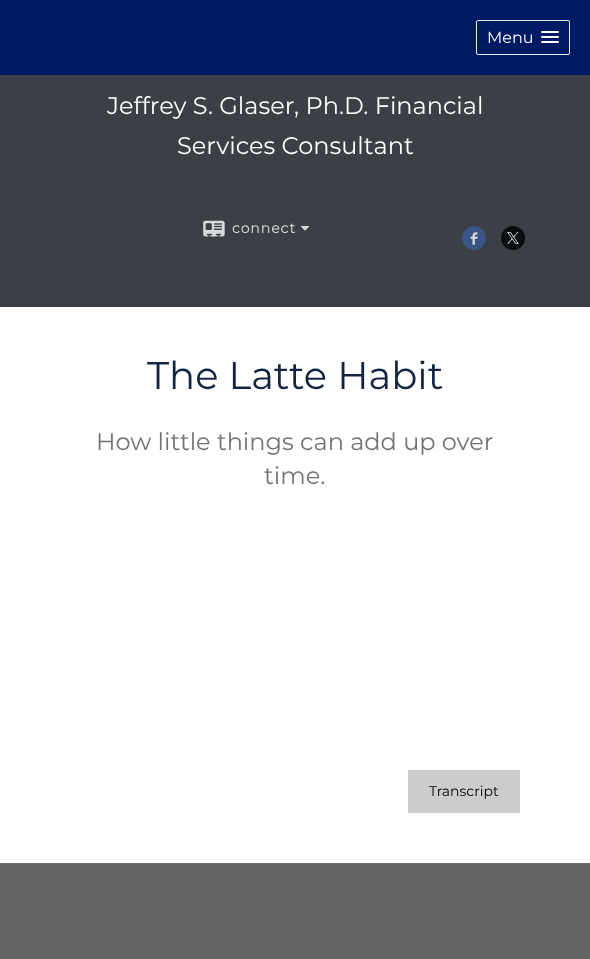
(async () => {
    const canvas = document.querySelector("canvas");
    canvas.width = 590;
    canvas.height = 959;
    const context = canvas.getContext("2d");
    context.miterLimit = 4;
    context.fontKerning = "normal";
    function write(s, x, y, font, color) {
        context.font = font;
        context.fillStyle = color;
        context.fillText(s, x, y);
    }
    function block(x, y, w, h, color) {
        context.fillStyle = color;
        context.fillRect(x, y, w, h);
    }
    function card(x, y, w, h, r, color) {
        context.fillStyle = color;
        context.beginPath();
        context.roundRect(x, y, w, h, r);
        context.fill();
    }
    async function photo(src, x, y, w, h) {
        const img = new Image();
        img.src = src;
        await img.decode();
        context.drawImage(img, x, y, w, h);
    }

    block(0, 0, 590, 959, "rgb(0, 27, 100)");
    context.beginPath();
    context.roundRect(476.5, 20.5, 93, 34, 1.5);
    context.strokeStyle = "rgb(236, 236, 236)";
    context.stroke();
    write("Menu", 487, 43, "16px Montserrat", "rgb(255, 255, 255)");
    card(541, 31, 18, 2, 1, "rgb(255, 255, 255)");
    card(541, 36, 18, 2, 1, "rgb(255, 255, 255)");
    card(541, 41, 18, 2, 1, "rgb(255, 255, 255)");
    block(0, 75, 590, 232, "rgb(59, 64, 70)");
    write("Jeffrey S. Glaser, Ph.D. Financial", 107, 114, "24px Montserrat", "rgb(255, 255, 255)");
    write("Services Consultant", 177, 154, "24px Montserrat", "rgb(255, 255, 255)");
    await photo("media/1.png", 203, 220, 22, 17);
    context.letterSpacing = "1px";
    write("connect", 232, 233, "bold 14px Montserrat", "rgb(216, 217, 218)");
    await photo("media/2.png", 301, 226, 8, 5);
    await photo("media/3.png", 462, 226, 24, 24);
    await photo("media/4.png", 501, 226, 24, 24);
    block(0, 307, 590, 556, "rgb(255, 255, 255)");
    context.letterSpacing = "0px";
    write("The Latte Habit", 147, 389, "38.5px Montserrat", "rgb(18, 36, 66)");
    write("How little things can add up over", 96, 450, "24px Montserrat", "rgb(115, 115, 115)");
    write("time.", 264, 484, "24px Montserrat", "rgb(115, 115, 115)");
    block(408, 770, 112, 43, "rgb(204, 204, 204)");
    write("Transcript", 429, 796, "14px Montserrat", "rgb(0, 0, 0)");
    block(0, 863, 590, 96, "rgb(102, 102, 102)");
})();
